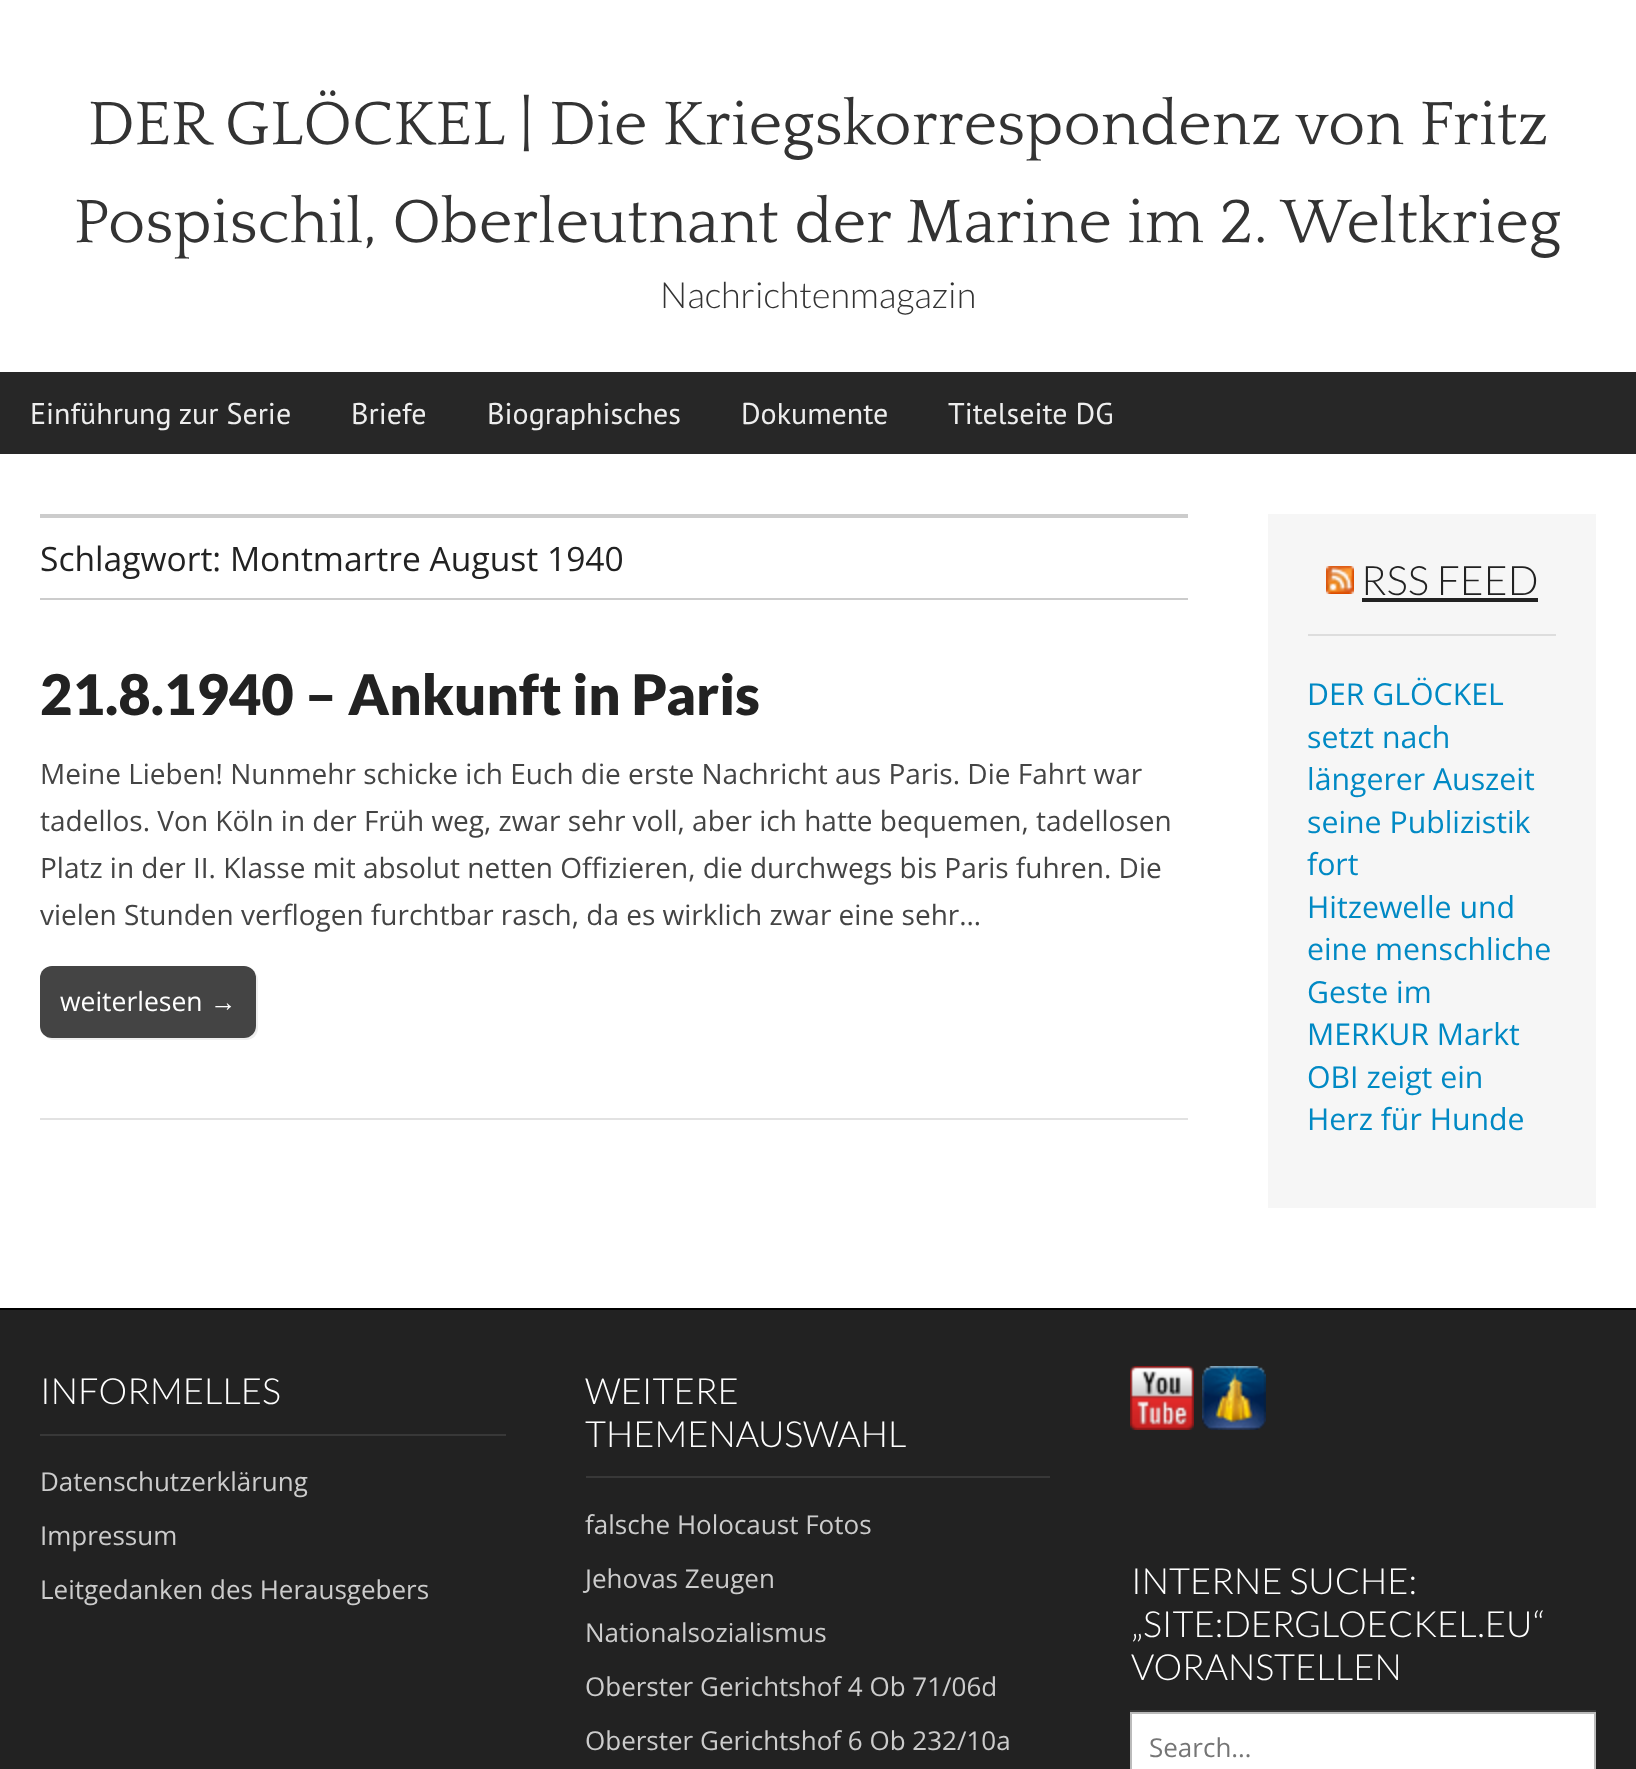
(async () => {
    const canvas = document.querySelector("canvas");
    canvas.width = 1636;
    canvas.height = 1769;
    const context = canvas.getContext("2d");
    context.miterLimit = 4;
    context.fontKerning = "normal";
    function write(s, x, y, font, color) {
        context.font = font;
        context.fillStyle = color;
        context.fillText(s, x, y);
    }
    function block(x, y, w, h, color) {
        context.fillStyle = color;
        context.fillRect(x, y, w, h);
    }
    function card(x, y, w, h, r, color) {
        context.fillStyle = color;
        context.beginPath();
        context.roundRect(x, y, w, h, r);
        context.fill();
    }
    async function photo(src, x, y, w, h) {
        const img = new Image();
        img.src = src;
        await img.decode();
        context.drawImage(img, x, y, w, h);
    }

    block(0, 0, 1636, 1769, "rgb(255, 255, 255)");
    write("DER GLÖCKEL | Die Kriegskorrespondenz von Fritz", 88, 144, "64px Quattrocento", "rgb(51, 51, 51)");
    write("Pospischil, Oberleutnant der Marine im 2. Weltkrieg", 74, 242, "64px Quattrocento", "rgb(51, 51, 51)");
    write("Nachrichtenmagazin", 660, 308, "300 36px Lato", "rgb(51, 51, 51)");
    block(0, 372, 1636, 82, "rgb(39, 39, 39)");
    write("Einführung zur Serie", 30, 424, "30px PT Sans", "rgb(238, 238, 238)");
    write("Briefe", 351, 424, "30px PT Sans", "rgb(238, 238, 238)");
    write("Biographisches", 487, 424, "30px PT Sans", "rgb(238, 238, 238)");
    write("Dokumente", 741, 424, "30px PT Sans", "rgb(238, 238, 238)");
    write("Titelseite DG", 948, 424, "30px PT Sans", "rgb(238, 238, 238)");
    block(40, 514, 1148, 4, "rgb(204, 204, 204)");
    block(40, 598, 1148, 2, "rgb(204, 204, 204)");
    write("Schlagwort: Montmartre August 1940", 40, 571, "33.6px Open Sans", "rgb(34, 34, 34)");
    block(40, 1118, 1148, 2, "rgb(226, 226, 226)");
    write("21.8.1940 – Ankunft in Paris", 40, 715, "900 56px Lato", "rgb(34, 34, 34)");
    write("Meine Lieben! Nunmehr schicke ich Euch die erste Nachricht aus Paris. Die Fahrt war", 40, 784, "28px Open Sans", "rgb(68, 68, 68)");
    write("tadellos. Von Köln in der Früh weg, zwar sehr voll, aber ich hatte bequemen, tadellosen", 40, 831, "28px Open Sans", "rgb(68, 68, 68)");
    write("Platz in der II. Klasse mit absolut netten Offizieren, die durchwegs bis Paris fuhren. Die", 40, 878, "28px Open Sans", "rgb(68, 68, 68)");
    write("vielen Stunden verflogen furchtbar rasch, da es wirklich zwar eine sehr…", 40, 925, "28px Open Sans", "rgb(68, 68, 68)");
    context.fillStyle = "rgb(238, 238, 238)";
    context.beginPath();
    context.moveTo(45, 1035);
    context.bezierCurveTo(47, 1038, 50, 1040, 54, 1040);
    context.lineTo(246, 1040);
    context.bezierCurveTo(253, 1040, 258, 1035, 258, 1028);
    context.lineTo(258, 980);
    context.bezierCurveTo(258, 976, 256, 973, 253, 971);
    context.bezierCurveTo(255, 973, 256, 975, 256, 978);
    context.lineTo(256, 1026);
    context.bezierCurveTo(256, 1033, 251, 1038, 244, 1038);
    context.lineTo(52, 1038);
    context.bezierCurveTo(49, 1038, 47, 1037, 45, 1035);
    context.closePath();
    context.fill();
    card(40, 966, 216, 72, 12, "rgb(68, 68, 68)");
    write("weiterlesen", 60, 1011, "26.5px Open Sans", "rgb(255, 255, 255)");
    write("→", 210, 1011, "26.5px Liberation Sans", "rgb(255, 255, 255)");
    block(1268, 514, 328, 694, "rgb(246, 246, 246)");
    block(1308, 634, 248, 2, "rgb(221, 221, 221)");
    await photo("media/1.png", 1326, 566, 28, 28);
    write("RSS FEED", 1361, 595, "300 40.5px Lato", "rgb(34, 34, 34)");
    block(1362, 598, 176, 4, "rgb(34, 34, 34)");
    write("DER GLÖCKEL", 1307, 705, "30.25px Open Sans", "rgb(0, 137, 196)");
    write("setzt nach", 1307, 748, "30.25px Open Sans", "rgb(0, 137, 196)");
    write("längerer Auszeit", 1307, 790, "30.25px Open Sans", "rgb(0, 137, 196)");
    write("seine Publizistik", 1307, 833, "30.25px Open Sans", "rgb(0, 137, 196)");
    write("fort", 1307, 875, "30.25px Open Sans", "rgb(0, 137, 196)");
    write("Hitzewelle und", 1307, 918, "30.25px Open Sans", "rgb(0, 137, 196)");
    write("eine menschliche", 1307, 960, "30.25px Open Sans", "rgb(0, 137, 196)");
    write("Geste im", 1307, 1003, "30.25px Open Sans", "rgb(0, 137, 196)");
    write("MERKUR Markt", 1307, 1045, "30.25px Open Sans", "rgb(0, 137, 196)");
    write("OBI zeigt ein", 1307, 1088, "30.25px Open Sans", "rgb(0, 137, 196)");
    write("Herz für Hunde", 1307, 1130, "30.25px Open Sans", "rgb(0, 137, 196)");
    block(0, 1310, 1636, 459, "rgb(34, 34, 34)");
    block(0, 1308, 1636, 2, "rgb(0, 0, 0)");
    block(40, 1434, 466, 2, "rgb(56, 56, 56)");
    write("INFORMELLES", 40, 1404, "300 36px Lato", "rgb(255, 255, 255)");
    write("Datenschutzerklärung", 40, 1491, "26px Open Sans", "rgb(204, 204, 204)");
    write("Impressum", 40, 1545, "26px Open Sans", "rgb(204, 204, 204)");
    write("Leitgedanken des Herausgebers", 40, 1599, "26px Open Sans", "rgb(204, 204, 204)");
    block(586, 1476, 464, 2, "rgb(56, 56, 56)");
    write("WEITERE", 585, 1404, "300 36px Lato", "rgb(255, 255, 255)");
    write("THEMENAUSWAHL", 585, 1447, "300 36px Lato", "rgb(255, 255, 255)");
    write("falsche Holocaust Fotos", 585, 1534, "26px Open Sans", "rgb(204, 204, 204)");
    write("Jehovas Zeugen", 585, 1588, "26px Open Sans", "rgb(204, 204, 204)");
    write("Nationalsozialismus", 585, 1642, "26px Open Sans", "rgb(204, 204, 204)");
    write("Oberster Gerichtshof 4 Ob 71/06d", 585, 1696, "26px Open Sans", "rgb(204, 204, 204)");
    write("Oberster Gerichtshof 6 Ob 232/10a", 585, 1750, "26px Open Sans", "rgb(204, 204, 204)");
    await photo("media/2.png", 1130, 1366, 64, 64);
    await photo("media/3.png", 1202, 1366, 64, 64);
    block(1130, 1710, 466, 2, "rgb(56, 56, 56)");
    write("INTERNE SUCHE:", 1131, 1594, "300 36px Lato", "rgb(255, 255, 255)");
    write("„SITE:DERGLOECKEL.EU“", 1131, 1637, "300 36px Lato", "rgb(255, 255, 255)");
    write("VORANSTELLEN", 1131, 1680, "300 36px Lato", "rgb(255, 255, 255)");
    context.beginPath();
    context.rect(1131, 1713, 464, 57);
    context.fill();
    context.strokeStyle = "rgb(187, 187, 187)";
    context.lineWidth = 2;
    context.stroke();
    write("Search…", 1149, 1757, "26px Open Sans", "rgb(117, 117, 117)");
})();
